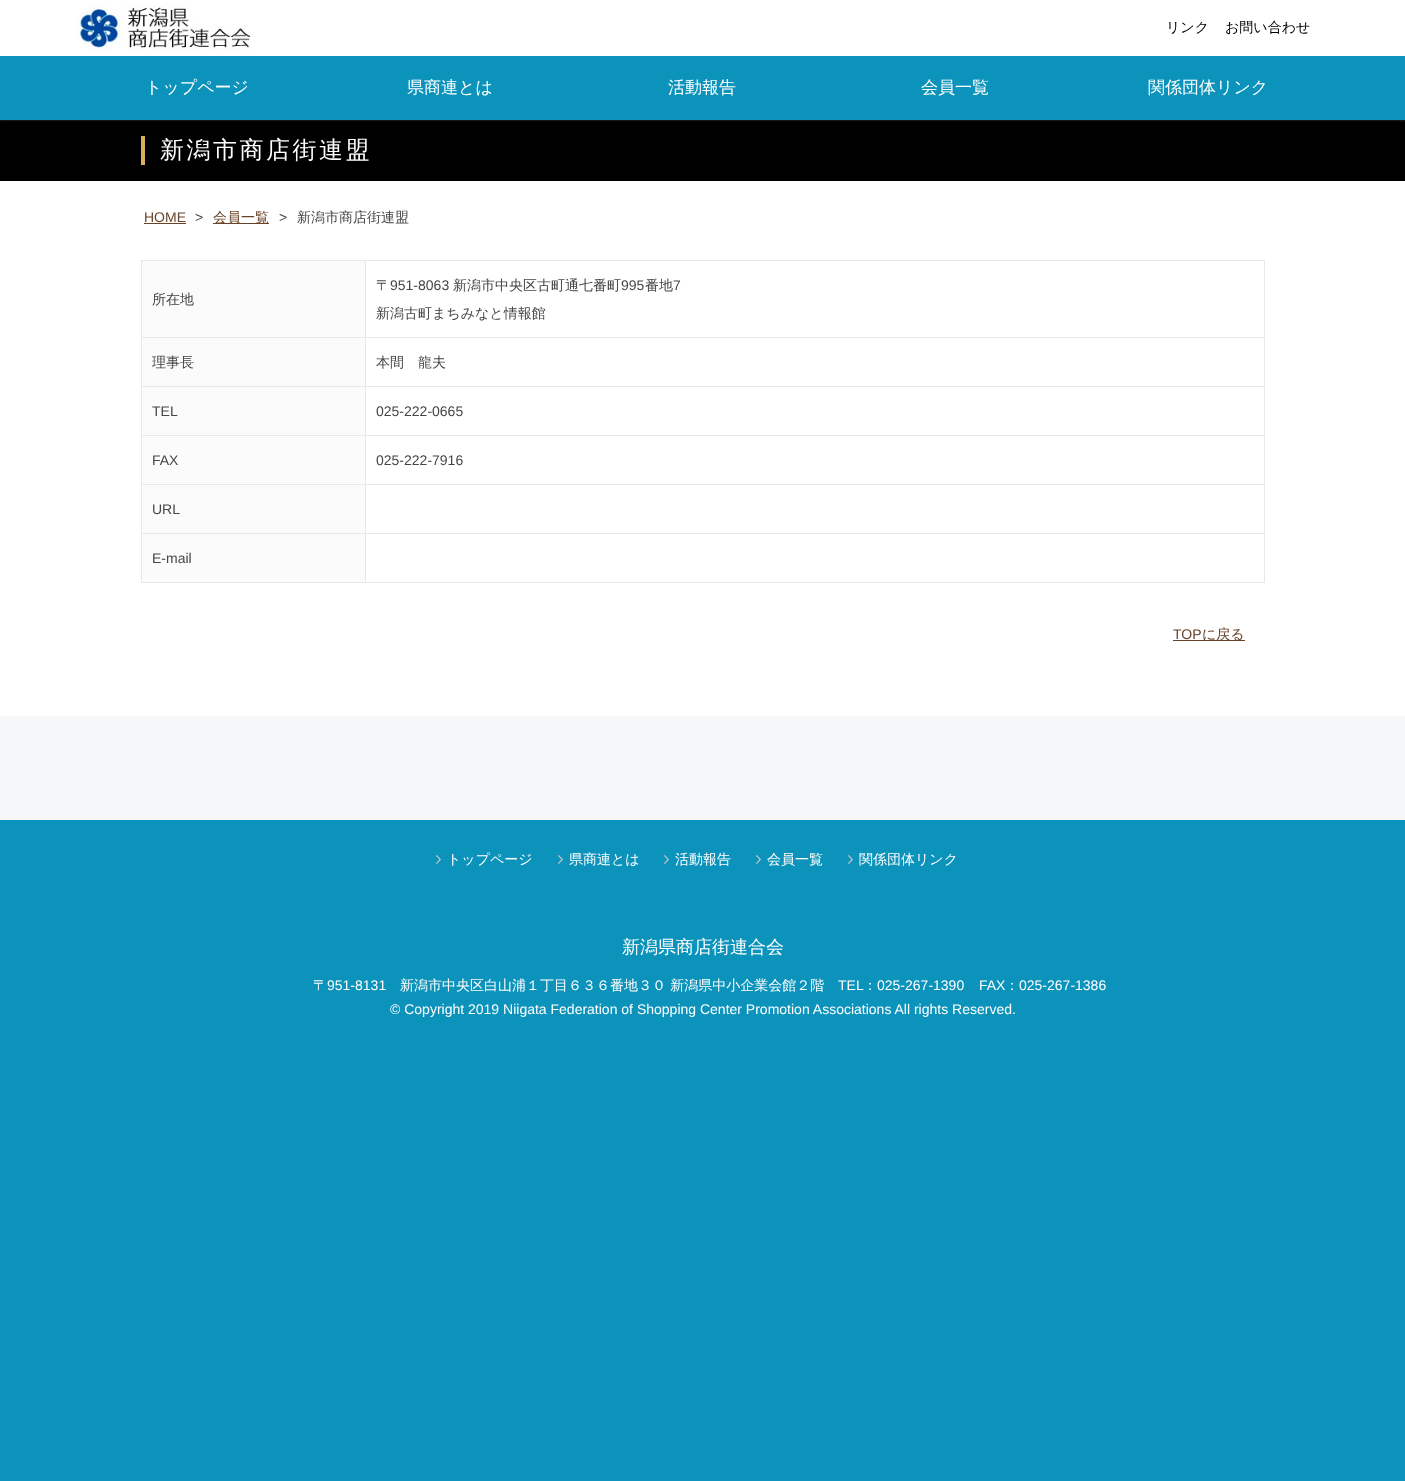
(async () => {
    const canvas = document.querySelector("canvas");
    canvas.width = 1405;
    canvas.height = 1481;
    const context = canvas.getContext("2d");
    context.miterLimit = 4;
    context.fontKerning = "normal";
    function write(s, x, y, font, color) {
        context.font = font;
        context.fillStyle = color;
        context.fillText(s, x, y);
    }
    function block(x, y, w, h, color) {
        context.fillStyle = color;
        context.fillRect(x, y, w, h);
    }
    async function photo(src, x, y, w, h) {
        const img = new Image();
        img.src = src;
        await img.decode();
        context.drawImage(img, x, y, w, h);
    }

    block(0, 0, 1405, 1481, "rgb(11, 147, 188)");
    block(0, 120, 1405, 61, "rgb(0, 0, 0)");
    context.save();
    context.beginPath();
    context.rect(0, 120, 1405, 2);
    context.clip();
    context.fillStyle = "rgb(69, 69, 69)";
    context.filter = "blur(1px)";
    context.beginPath();
    context.rect(0, 0, 1405, 120);
    context.fill();
    context.filter = "none";
    context.restore();
    block(0, 0, 1405, 56, "rgb(255, 255, 255)");
    await photo("media/1.png", 75, 5, 176, 46);
    write("リンク", 1166, 32, "500 14px WenQuanYi Zen Hei", "rgb(0, 0, 0)");
    write("お問い合わせ", 1225, 32, "500 14px WenQuanYi Zen Hei", "rgb(0, 0, 0)");
    write("トップページ", 145, 93, "500 17px WenQuanYi Zen Hei", "rgb(255, 255, 255)");
    write("県商連とは", 407, 93, "500 17px WenQuanYi Zen Hei", "rgb(255, 255, 255)");
    write("活動報告", 668, 93, "500 17px WenQuanYi Zen Hei", "rgb(255, 255, 255)");
    write("会員一覧", 921, 93, "500 17px WenQuanYi Zen Hei", "rgb(255, 255, 255)");
    write("関係団体リンク", 1148, 93, "500 17px WenQuanYi Zen Hei", "rgb(255, 255, 255)");
    block(0, 181, 1405, 535, "rgb(255, 255, 255)");
    block(141, 136, 4, 29, "rgb(219, 174, 91)");
    context.letterSpacing = "2.5px";
    write("新潟市商店街連盟", 160, 158, "500 24px WenQuanYi Zen Hei", "rgb(255, 255, 255)");
    context.letterSpacing = "0px";
    write("HOME", 144, 222, "14px Liberation Sans", "rgb(105, 67, 41)");
    block(144, 223, 42, 1, "rgb(105, 67, 41)");
    write(">", 195, 222, "14px Liberation Sans", "rgb(69, 69, 69)");
    block(213, 223, 56, 1, "rgb(105, 67, 41)");
    write("会員一覧", 213, 222, "500 14px WenQuanYi Zen Hei", "rgb(105, 67, 41)");
    write(">", 279, 222, "14px Liberation Sans", "rgb(69, 69, 69)");
    write("新潟市商店街連盟", 297, 222, "500 14px WenQuanYi Zen Hei", "rgb(69, 69, 69)");
    block(142, 261, 223, 76, "rgb(251, 251, 251)");
    block(365, 260, 900, 1, "rgb(232, 232, 232)");
    block(365, 337, 900, 1, "rgb(232, 232, 232)");
    block(365, 386, 900, 1, "rgb(232, 232, 232)");
    block(365, 435, 900, 1, "rgb(232, 232, 232)");
    block(365, 484, 900, 1, "rgb(232, 232, 232)");
    block(365, 533, 900, 1, "rgb(232, 232, 232)");
    block(1264, 533, 1, 50, "rgb(232, 232, 232)");
    block(365, 582, 900, 1, "rgb(232, 232, 232)");
    block(365, 533, 1, 50, "rgb(232, 232, 232)");
    block(141, 533, 225, 1, "rgb(232, 232, 232)");
    block(365, 484, 1, 50, "rgb(232, 232, 232)");
    block(141, 484, 225, 1, "rgb(232, 232, 232)");
    block(365, 435, 1, 50, "rgb(232, 232, 232)");
    block(141, 435, 225, 1, "rgb(232, 232, 232)");
    block(365, 386, 1, 50, "rgb(232, 232, 232)");
    block(141, 386, 225, 1, "rgb(232, 232, 232)");
    block(365, 337, 1, 50, "rgb(232, 232, 232)");
    block(141, 337, 225, 1, "rgb(232, 232, 232)");
    block(365, 260, 1, 78, "rgb(232, 232, 232)");
    block(141, 260, 225, 1, "rgb(232, 232, 232)");
    block(141, 582, 225, 1, "rgb(232, 232, 232)");
    block(141, 533, 1, 50, "rgb(232, 232, 232)");
    block(141, 484, 1, 50, "rgb(232, 232, 232)");
    block(141, 435, 1, 50, "rgb(232, 232, 232)");
    block(141, 386, 1, 50, "rgb(232, 232, 232)");
    block(141, 337, 1, 50, "rgb(232, 232, 232)");
    block(141, 260, 1, 78, "rgb(232, 232, 232)");
    write("所在地", 152, 304, "500 14px WenQuanYi Zen Hei", "rgb(69, 69, 69)");
    block(1264, 484, 1, 50, "rgb(232, 232, 232)");
    block(1264, 435, 1, 50, "rgb(232, 232, 232)");
    block(1264, 386, 1, 50, "rgb(232, 232, 232)");
    block(1264, 337, 1, 50, "rgb(232, 232, 232)");
    block(1264, 260, 1, 78, "rgb(232, 232, 232)");
    write("〒", 376, 290, "500 14px WenQuanYi Zen Hei", "rgb(69, 69, 69)");
    write("951-8063", 390, 290, "14px Liberation Sans", "rgb(69, 69, 69)");
    write("新潟市中央区古町通七番町", 453, 290, "500 14px WenQuanYi Zen Hei", "rgb(69, 69, 69)");
    write("995", 621, 290, "14px Liberation Sans", "rgb(69, 69, 69)");
    write("番地", 645, 290, "500 14px WenQuanYi Zen Hei", "rgb(69, 69, 69)");
    write("7", 673, 290, "14px Liberation Sans", "rgb(69, 69, 69)");
    write("新潟古町まちみなと情報館", 376, 318, "500 14px WenQuanYi Zen Hei", "rgb(69, 69, 69)");
    block(142, 338, 223, 48, "rgb(251, 251, 251)");
    write("理事長", 152, 367, "500 14px WenQuanYi Zen Hei", "rgb(69, 69, 69)");
    write("本間　龍夫", 376, 367, "500 14px WenQuanYi Zen Hei", "rgb(69, 69, 69)");
    block(142, 387, 223, 48, "rgb(251, 251, 251)");
    write("TEL", 152, 416, "14px Liberation Sans", "rgb(69, 69, 69)");
    write("025-222-0665", 376, 416, "14px Liberation Sans", "rgb(69, 69, 69)");
    block(142, 436, 223, 48, "rgb(251, 251, 251)");
    write("FAX", 152, 465, "14px Liberation Sans", "rgb(69, 69, 69)");
    write("025-222-7916", 376, 465, "14px Liberation Sans", "rgb(69, 69, 69)");
    block(142, 485, 223, 48, "rgb(251, 251, 251)");
    write("URL", 152, 514, "14px Liberation Sans", "rgb(69, 69, 69)");
    block(142, 534, 223, 48, "rgb(251, 251, 251)");
    write("E-mail", 152, 563, "14px Liberation Sans", "rgb(69, 69, 69)");
    write("TOP", 1173, 639, "14px Liberation Sans", "rgb(105, 67, 41)");
    block(1173, 640, 72, 1, "rgb(105, 67, 41)");
    write("に戻る", 1202, 639, "500 14px WenQuanYi Zen Hei", "rgb(105, 67, 41)");
    block(0, 716, 1405, 104, "rgb(246, 247, 249)");
    await photo("media/2.png", 436, 855, 5, 9);
    write("トップページ", 447, 864, "500 14px WenQuanYi Zen Hei", "rgb(255, 255, 255)");
    await photo("media/2.png", 558, 855, 5, 9);
    write("県商連とは", 569, 864, "500 14px WenQuanYi Zen Hei", "rgb(255, 255, 255)");
    await photo("media/2.png", 664, 855, 5, 9);
    write("活動報告", 675, 864, "500 14px WenQuanYi Zen Hei", "rgb(255, 255, 255)");
    await photo("media/2.png", 756, 855, 5, 9);
    write("会員一覧", 767, 864, "500 14px WenQuanYi Zen Hei", "rgb(255, 255, 255)");
    await photo("media/2.png", 848, 855, 5, 9);
    write("関係団体リンク", 859, 864, "500 14px WenQuanYi Zen Hei", "rgb(255, 255, 255)");
    write("新潟県商店街連合会", 622, 953, "500 18px WenQuanYi Zen Hei", "rgb(255, 255, 255)");
    write("〒", 313, 990, "500 14px WenQuanYi Zen Hei", "rgb(255, 255, 255)");
    write("951-8131", 327, 990, "14px Liberation Sans", "rgb(255, 255, 255)");
    write("新潟市中央区白山浦１丁目６３６番地３０ 新潟県中小企業会館２階", 400, 990, "500 14px WenQuanYi Zen Hei", "rgb(255, 255, 255)");
    write("TEL", 838, 990, "14px Liberation Sans", "rgb(255, 255, 255)");
    write("：", 863, 990, "500 14px WenQuanYi Zen Hei", "rgb(255, 255, 255)");
    write("025-267-1390", 877, 990, "14px Liberation Sans", "rgb(255, 255, 255)");
    write("FAX", 979, 990, "14px Liberation Sans", "rgb(255, 255, 255)");
    write("：", 1005, 990, "500 14px WenQuanYi Zen Hei", "rgb(255, 255, 255)");
    write("025-267-1386", 1019, 990, "14px Liberation Sans", "rgb(255, 255, 255)");
    write("© Copyright 2019 Niigata Federation of Shopping Center Promotion Associations All rights Reserved.", 390, 1014, "14px Liberation Sans", "rgb(255, 255, 255)");
})();
